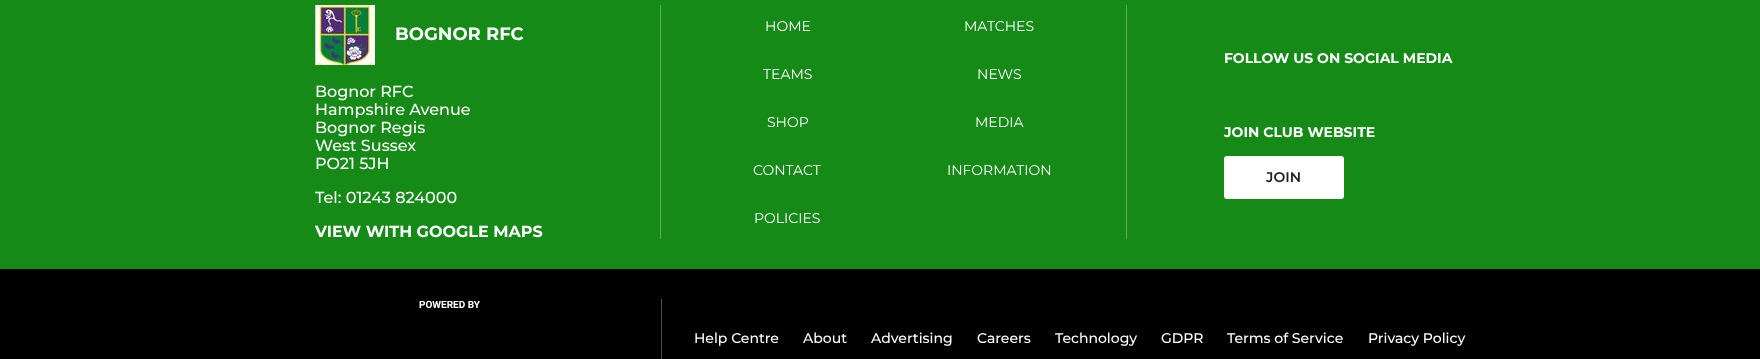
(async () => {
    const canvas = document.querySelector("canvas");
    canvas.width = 1760;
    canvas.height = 359;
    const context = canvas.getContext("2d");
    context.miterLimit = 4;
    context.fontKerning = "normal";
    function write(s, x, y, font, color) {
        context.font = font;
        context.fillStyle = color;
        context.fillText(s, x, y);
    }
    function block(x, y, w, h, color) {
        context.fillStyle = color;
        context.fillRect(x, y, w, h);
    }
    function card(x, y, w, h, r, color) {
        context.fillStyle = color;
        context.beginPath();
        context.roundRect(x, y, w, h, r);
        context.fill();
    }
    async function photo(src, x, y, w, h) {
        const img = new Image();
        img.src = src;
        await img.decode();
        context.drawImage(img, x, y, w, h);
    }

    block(0, 0, 1760, 359, "rgb(21, 138, 23)");
    await photo("media/1.png", 315, 5, 60, 60);
    write("BOGNOR RFC", 395, 40, "bold 18px Montserrat", "rgb(255, 255, 255)");
    write("Bognor RFC", 315, 97, "500 16px Montserrat", "rgb(255, 255, 255)");
    write("Hampshire Avenue", 315, 115, "500 16px Montserrat", "rgb(255, 255, 255)");
    write("Bognor Regis", 315, 133, "500 16px Montserrat", "rgb(255, 255, 255)");
    write("West Sussex", 315, 151, "500 16px Montserrat", "rgb(255, 255, 255)");
    write("PO21 5JH", 315, 169, "500 16px Montserrat", "rgb(255, 255, 255)");
    write("Tel: 01243 824000", 315, 203, "500 16px Montserrat", "rgb(255, 255, 255)");
    write("VIEW WITH GOOGLE MAPS", 315, 237, "bold 16px Montserrat", "rgb(255, 255, 255)");
    block(1126, 5, 1, 234, "rgb(91, 173, 93)");
    block(660, 5, 1, 234, "rgb(91, 173, 93)");
    write("HOME", 765, 31, "14px Montserrat", "rgb(255, 255, 255)");
    write("MATCHES", 964, 31, "14px Montserrat", "rgb(255, 255, 255)");
    write("TEAMS", 763, 79, "14px Montserrat", "rgb(255, 255, 255)");
    write("NEWS", 977, 79, "14px Montserrat", "rgb(255, 255, 255)");
    write("SHOP", 767, 127, "14px Montserrat", "rgb(255, 255, 255)");
    write("MEDIA", 975, 127, "14px Montserrat", "rgb(255, 255, 255)");
    write("CONTACT", 753, 175, "14px Montserrat", "rgb(255, 255, 255)");
    write("INFORMATION", 947, 175, "14px Montserrat", "rgb(255, 255, 255)");
    write("POLICIES", 754, 223, "14px Montserrat", "rgb(255, 255, 255)");
    write("FOLLOW US ON SOCIAL MEDIA", 1224, 63, "bold 14px Montserrat", "rgb(255, 255, 255)");
    write("JOIN CLUB WEBSITE", 1224, 137, "bold 14px Montserrat", "rgb(255, 255, 255)");
    card(1224, 156, 120, 43, 3, "rgb(255, 255, 255)");
    write("JOIN", 1266, 182, "600 14px Montserrat", "rgb(34, 34, 34)");
    block(0, 269, 1760, 90, "rgb(0, 0, 0)");
    write("POWERED BY", 419, 308, "bold 10px Roboto", "rgb(255, 255, 255)");
    block(661, 299, 1, 60, "rgb(77, 77, 77)");
    write("Help Centre", 694, 343, "500 14px Montserrat", "rgb(255, 255, 255)");
    write("About", 803, 343, "500 14px Montserrat", "rgb(255, 255, 255)");
    write("Advertising", 871, 343, "500 14px Montserrat", "rgb(255, 255, 255)");
    write("Careers", 977, 343, "500 14px Montserrat", "rgb(255, 255, 255)");
    write("Technology", 1055, 343, "500 14px Montserrat", "rgb(255, 255, 255)");
    write("GDPR", 1161, 343, "500 14px Montserrat", "rgb(255, 255, 255)");
    write("Terms of Service", 1227, 343, "500 14px Montserrat", "rgb(255, 255, 255)");
    write("Privacy Policy", 1368, 343, "500 14px Montserrat", "rgb(255, 255, 255)");
})();
